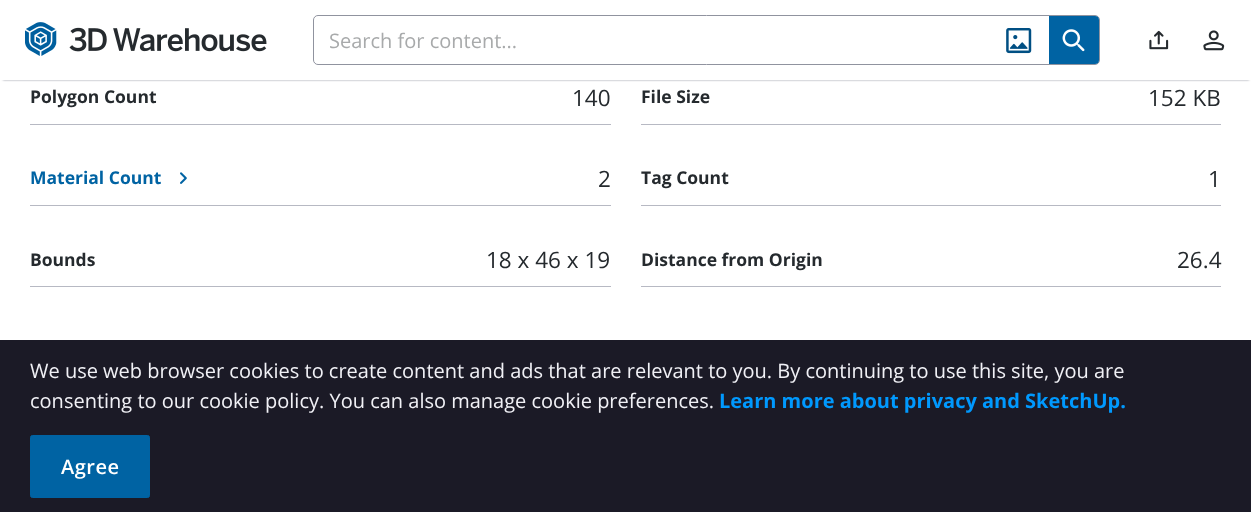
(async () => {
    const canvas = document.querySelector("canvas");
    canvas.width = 1251;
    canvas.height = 512;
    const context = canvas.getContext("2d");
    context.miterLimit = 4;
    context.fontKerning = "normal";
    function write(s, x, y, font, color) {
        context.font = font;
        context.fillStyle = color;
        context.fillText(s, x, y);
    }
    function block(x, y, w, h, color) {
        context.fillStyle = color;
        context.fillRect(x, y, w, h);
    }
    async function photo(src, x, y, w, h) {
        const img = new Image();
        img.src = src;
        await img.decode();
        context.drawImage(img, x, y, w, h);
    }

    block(0, 0, 1251, 512, "rgb(255, 255, 255)");
    context.fillStyle = "rgb(144, 147, 159)";
    context.filter = "blur(1px)";
    context.beginPath();
    context.rect(3, 5, 1246, 75);
    context.fill();
    context.filter = "none";
    block(1, 3, 1250, 77, "rgb(255, 255, 255)");
    await photo("media/1.png", 25, 22, 32, 34);
    await photo("media/2.png", 69, 27, 198, 25);
    context.beginPath();
    context.roundRect(313.5, 15.5, 786, 49, 4.5);
    context.strokeStyle = "rgb(144, 147, 159)";
    context.stroke();
    write("Search for content...", 329, 48, "20px Open Sans", "rgb(168, 170, 171)");
    await photo("media/3.png", 1006, 28, 26, 26);
    context.fillStyle = "rgb(0, 99, 163)";
    context.beginPath();
    context.roundRect(1049, 16, 50, 48, [0, 4, 4, 0]);
    context.fill();
    await photo("media/4.png", 1062, 29, 23, 23);
    await photo("media/5.png", 1149, 30, 20, 20);
    await photo("media/6.png", 1203, 30, 22, 21);
    block(30, 124, 581, 1, "rgb(183, 185, 195)");
    write("Polygon Count", 30, 103, "bold 17.5px Open Sans", "rgb(37, 42, 46)");
    write("140", 572, 106, "22.5px Open Sans", "rgb(37, 42, 46)");
    block(641, 124, 580, 1, "rgb(183, 185, 195)");
    write("File Size", 641, 103, "bold 17.5px Open Sans", "rgb(37, 42, 46)");
    write("152 KB", 1148, 106, "22.5px Open Sans", "rgb(37, 42, 46)");
    block(30, 205, 581, 1, "rgb(183, 185, 195)");
    write("Material Count", 30, 184, "bold 17.5px Open Sans", "rgb(0, 99, 163)");
    await photo("media/7.png", 180, 172, 7, 12);
    write("2", 598, 187, "22.5px Open Sans", "rgb(37, 42, 46)");
    block(641, 205, 580, 1, "rgb(183, 185, 195)");
    write("Tag Count", 641, 184, "bold 17.5px Open Sans", "rgb(37, 42, 46)");
    write("1", 1208, 187, "22.5px Open Sans", "rgb(37, 42, 46)");
    block(30, 286, 581, 1, "rgb(183, 185, 195)");
    write("Bounds", 30, 266, "bold 17.5px Open Sans", "rgb(37, 42, 46)");
    write("18 x 46 x 19", 486, 268, "22.5px Open Sans", "rgb(37, 42, 46)");
    block(641, 286, 580, 1, "rgb(183, 185, 195)");
    write("Distance from Origin", 641, 266, "bold 17.5px Open Sans", "rgb(37, 42, 46)");
    write("26.4", 1177, 268, "22.5px Open Sans", "rgb(37, 42, 46)");
    block(0, 340, 1251, 172, "rgb(27, 26, 38)");
    write("We use web browser cookies to create content and ads that are relevant to you. By continuing to use this site, you are", 30, 378, "20px Open Sans", "rgb(241, 241, 246)");
    write("consenting to our cookie policy. You can also manage cookie preferences.", 30, 408, "20px Open Sans", "rgb(241, 241, 246)");
    write("Learn more about privacy and SketchUp.", 719, 408, "bold 20px Open Sans", "rgb(0, 153, 254)");
    context.fillStyle = "rgb(0, 99, 163)";
    context.beginPath();
    context.roundRect(30.5, 435.5, 119, 62, 2);
    context.fill();
    context.strokeStyle = "rgb(0, 99, 163)";
    context.stroke();
    context.letterSpacing = "0.5px";
    write("Agree", 61, 474, "600 20px Open Sans", "rgb(255, 255, 255)");
})();
